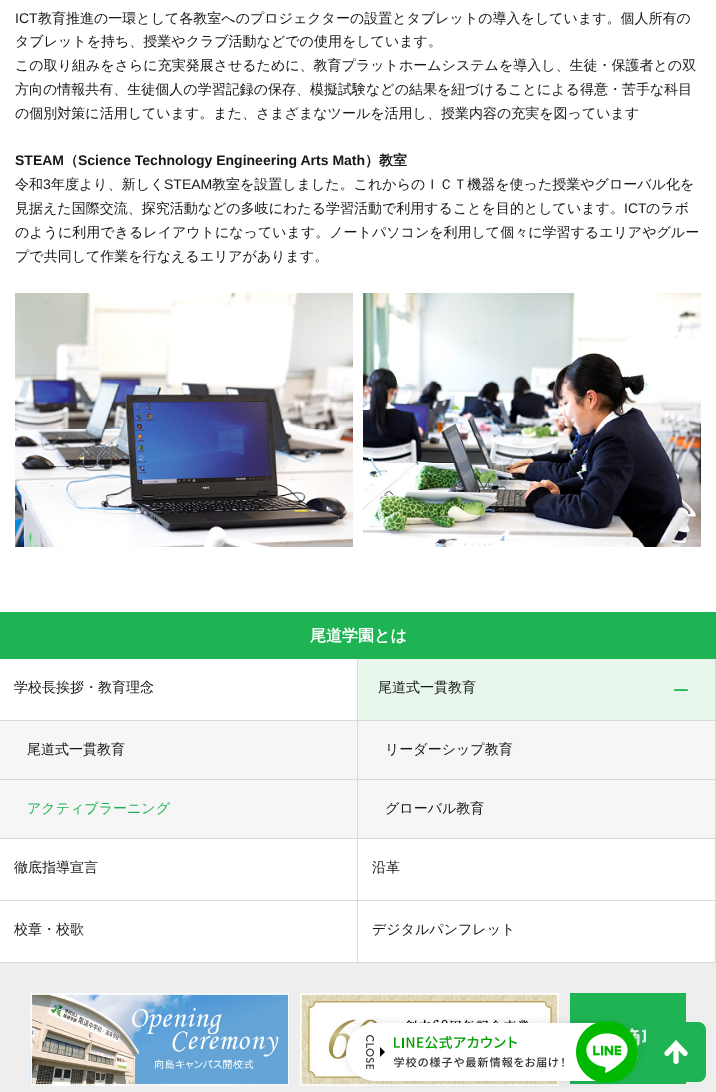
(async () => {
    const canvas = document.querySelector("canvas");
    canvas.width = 716;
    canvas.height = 1092;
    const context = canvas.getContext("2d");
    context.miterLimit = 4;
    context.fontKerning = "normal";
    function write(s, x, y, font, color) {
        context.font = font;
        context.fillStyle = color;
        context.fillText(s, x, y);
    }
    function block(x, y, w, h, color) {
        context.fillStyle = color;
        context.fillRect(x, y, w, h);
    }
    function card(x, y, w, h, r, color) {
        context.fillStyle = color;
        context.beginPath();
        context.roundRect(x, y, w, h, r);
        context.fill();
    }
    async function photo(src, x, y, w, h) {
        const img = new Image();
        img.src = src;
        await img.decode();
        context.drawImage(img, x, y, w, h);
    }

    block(0, 0, 716, 1092, "rgb(255, 255, 255)");
    write("ICT", 15, 23, "14px Liberation Sans", "rgb(22, 22, 22)");
    write("教育推進の一環として各教室へのプロジェクターの設置とタブレットの導入をしています。個人所有の", 38, 23, "500 14px WenQuanYi Zen Hei", "rgb(22, 22, 22)");
    write("タブレットを持ち、授業やクラブ活動などでの使用をしています。", 15, 46, "500 14px WenQuanYi Zen Hei", "rgb(22, 22, 22)");
    write("この取り組みをさらに充実発展させるために、教育プラットホームシステムを導入し、生徒・保護者との双", 15, 70, "500 14px WenQuanYi Zen Hei", "rgb(22, 22, 22)");
    write("方向の情報共有、生徒個人の学習記録の保存、模擬試験などの結果を紐づけることによる得意・苦手な科目", 15, 94, "500 14px WenQuanYi Zen Hei", "rgb(22, 22, 22)");
    write("の個別対策に活用しています。また、さまざまなツールを活用し、授業内容の充実を図っています", 15, 118, "500 14px WenQuanYi Zen Hei", "rgb(22, 22, 22)");
    write("STEAM", 15, 165, "bold 14px Liberation Sans", "rgb(22, 22, 22)");
    write("（", 64, 165, "bold 14px WenQuanYi Zen Hei", "rgb(22, 22, 22)");
    write("Science Technology Engineering Arts Math", 78, 165, "bold 14px Liberation Sans", "rgb(22, 22, 22)");
    write("）教室", 365, 165, "bold 14px WenQuanYi Zen Hei", "rgb(22, 22, 22)");
    write("令和", 15, 189, "500 14px WenQuanYi Zen Hei", "rgb(22, 22, 22)");
    write("3", 43, 189, "14px Liberation Sans", "rgb(22, 22, 22)");
    write("年度より、新しく", 51, 189, "500 14px WenQuanYi Zen Hei", "rgb(22, 22, 22)");
    write("STEAM", 164, 189, "14px Liberation Sans", "rgb(22, 22, 22)");
    write("教室を設置しました。これからのＩＣＴ機器を使った授業やグローバル化を", 212, 189, "500 14px WenQuanYi Zen Hei", "rgb(22, 22, 22)");
    write("見据えた国際交流、探究活動などの多岐にわたる学習活動で利用することを目的としています。", 15, 213, "500 14px WenQuanYi Zen Hei", "rgb(22, 22, 22)");
    write("ICT", 624, 213, "14px Liberation Sans", "rgb(22, 22, 22)");
    write("のラボ", 646, 213, "500 14px WenQuanYi Zen Hei", "rgb(22, 22, 22)");
    write("のように利用できるレイアウトになっています。ノートパソコンを利用して個々に学習するエリアやグルー", 15, 237, "500 14px WenQuanYi Zen Hei", "rgb(22, 22, 22)");
    write("プで共同して作業を行なえるエリアがあります。", 15, 261, "500 14px WenQuanYi Zen Hei", "rgb(22, 22, 22)");
    await photo("media/1.png", 15, 293, 338, 254);
    await photo("media/2.png", 363, 293, 338, 254);
    block(0, 612, 716, 47, "rgb(31, 180, 83)");
    write("尾道学園とは", 310, 641, "bold 16px WenQuanYi Zen Hei", "rgb(255, 255, 255)");
    block(357, 659, 1, 304, "rgb(217, 217, 217)");
    block(0, 720, 358, 1, "rgb(217, 217, 217)");
    write("学校長挨拶・教育理念", 14, 692, "500 14px WenQuanYi Zen Hei", "rgb(22, 22, 22)");
    block(358, 659, 357, 61, "rgb(232, 247, 235)");
    await photo("media/3.png", 674, 689, 14, 2);
    block(715, 659, 1, 304, "rgb(217, 217, 217)");
    block(358, 720, 358, 1, "rgb(217, 217, 217)");
    write("尾道式一貫教育", 378, 692, "500 14px WenQuanYi Zen Hei", "rgb(22, 22, 22)");
    block(0, 721, 357, 58, "rgb(246, 246, 246)");
    block(0, 779, 716, 1, "rgb(217, 217, 217)");
    write("尾道式一貫教育", 27, 754, "500 14px WenQuanYi Zen Hei", "rgb(22, 22, 22)");
    block(358, 721, 357, 58, "rgb(246, 246, 246)");
    write("リーダーシップ教育", 385, 754, "500 14px WenQuanYi Zen Hei", "rgb(22, 22, 22)");
    block(0, 780, 357, 58, "rgb(246, 246, 246)");
    block(0, 838, 716, 1, "rgb(217, 217, 217)");
    write("アクティブラーニング", 27, 813, "500 14px WenQuanYi Zen Hei", "rgb(31, 180, 83)");
    block(358, 780, 357, 58, "rgb(246, 246, 246)");
    write("グローバル教育", 385, 813, "500 14px WenQuanYi Zen Hei", "rgb(22, 22, 22)");
    block(0, 900, 716, 1, "rgb(217, 217, 217)");
    write("徹底指導宣言", 14, 872, "500 14px WenQuanYi Zen Hei", "rgb(22, 22, 22)");
    write("沿革", 372, 872, "500 14px WenQuanYi Zen Hei", "rgb(22, 22, 22)");
    block(0, 962, 716, 1, "rgb(217, 217, 217)");
    write("校章・校歌", 14, 934, "500 14px WenQuanYi Zen Hei", "rgb(22, 22, 22)");
    write("デジタルパンフレット", 372, 934, "500 14px WenQuanYi Zen Hei", "rgb(22, 22, 22)");
    block(0, 963, 716, 129, "rgb(238, 238, 238)");
    await photo("media/4.png", 30, 993, 260, 93);
    await photo("media/5.png", 300, 993, 260, 93);
    await photo("media/6.png", 570, 993, 116, 91);
    await photo("media/7.png", 646, 1022, 60, 60);
    context.fillStyle = "rgba(0, 0, 0, 0.1)";
    context.filter = "blur(5px)";
    context.beginPath();
    context.roundRect(346, 1023, 292, 58, 29);
    context.fill();
    context.filter = "none";
    card(346, 1023, 292, 58, 29, "rgb(255, 255, 255)");
    await photo("media/8.png", 366, 1035, 8, 34);
    context.fillStyle = "rgb(0, 0, 0)";
    context.beginPath();
    context.moveTo(380, 1047);
    context.lineTo(385, 1052);
    context.lineTo(380, 1057);
    context.closePath();
    context.fill();
    await photo("media/9.png", 394, 1036, 123, 13);
    await photo("media/10.png", 394, 1057, 170, 11);
    await photo("media/11.png", 576, 1021, 62, 62);
})();
